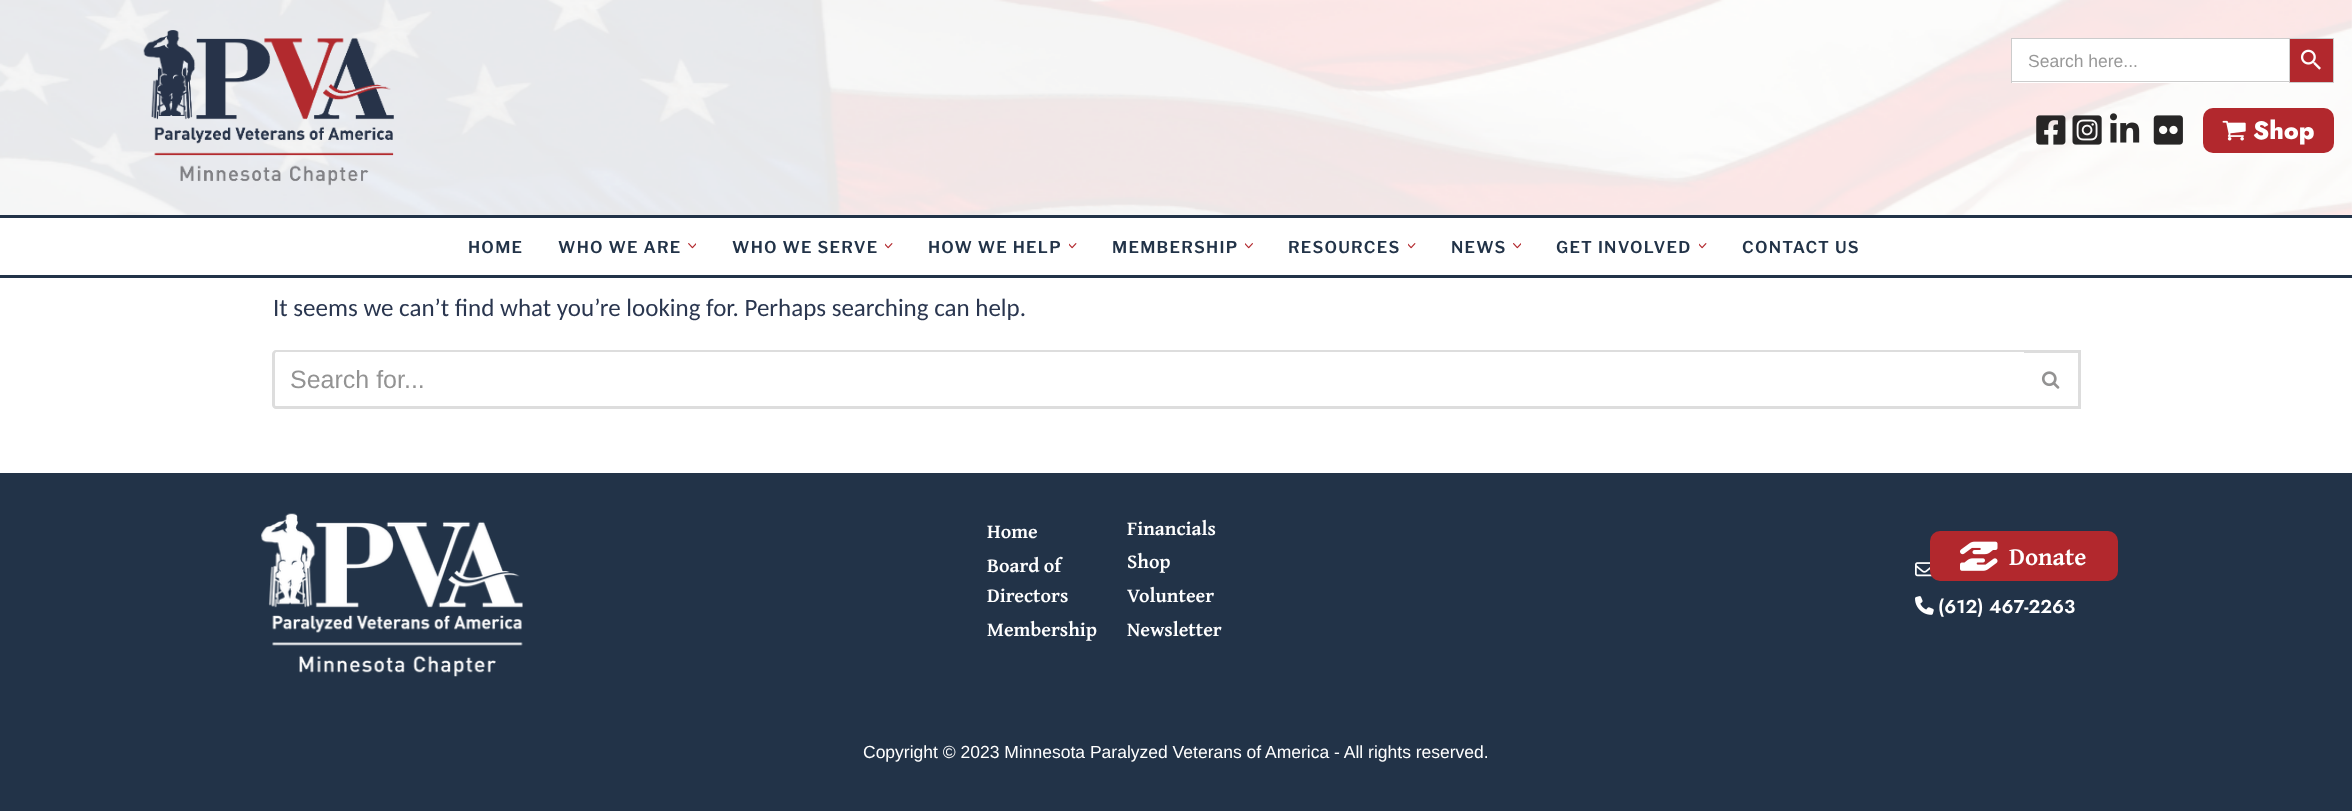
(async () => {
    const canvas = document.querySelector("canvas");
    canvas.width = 2352;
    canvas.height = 811;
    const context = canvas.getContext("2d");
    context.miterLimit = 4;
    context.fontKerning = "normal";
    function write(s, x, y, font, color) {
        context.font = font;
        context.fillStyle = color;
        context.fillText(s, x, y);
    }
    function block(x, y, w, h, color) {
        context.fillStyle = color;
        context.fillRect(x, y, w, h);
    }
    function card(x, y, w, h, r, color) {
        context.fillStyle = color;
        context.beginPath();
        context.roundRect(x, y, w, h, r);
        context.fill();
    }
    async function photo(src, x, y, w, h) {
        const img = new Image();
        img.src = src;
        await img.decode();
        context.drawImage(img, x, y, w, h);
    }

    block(0, 0, 2352, 811, "rgb(255, 255, 255)");
    await photo("media/1.png", 0, 0, 2352, 215);
    block(0, 215, 2352, 3, "rgb(34, 51, 72)");
    await photo("media/2.png", 143, 30, 251, 156);
    block(2012, 39, 277, 44, "rgb(255, 255, 255)");
    block(2011, 38, 278, 1, "rgb(204, 204, 204)");
    block(2011, 81, 278, 1, "rgb(204, 204, 204)");
    block(2011, 38, 1, 45, "rgb(204, 204, 204)");
    write("Search here...", 2028, 67, "17.5px Liberation Sans", "rgb(153, 153, 153)");
    context.fillStyle = "rgb(178, 40, 45)";
    context.beginPath();
    context.rect(2289.5, 38.5, 44, 44);
    context.fill();
    context.strokeStyle = "rgb(204, 204, 204)";
    context.stroke();
    await photo("media/3.png", 2300, 49, 21, 21);
    await photo("media/4.png", 2036, 115, 30, 30);
    await photo("media/5.png", 2072, 115, 30, 30);
    await photo("media/6.png", 2110, 113, 30, 30);
    await photo("media/7.png", 2153, 115, 30, 30);
    card(2203, 108, 131, 45, 10, "rgb(178, 40, 45)");
    await photo("media/8.png", 2222, 120, 24, 21);
    write("Shop", 2253, 139, "800 25px Jost", "rgb(255, 255, 255)");
    block(0, 275, 2352, 3, "rgb(34, 51, 72)");
    context.letterSpacing = "1.25px";
    write("HOME", 468, 253, "600 16.25px Libre Franklin", "rgb(34, 51, 72)");
    write("WHO WE ARE", 558, 253, "600 16.25px Libre Franklin", "rgb(34, 51, 72)");
    await photo("media/9.png", 688, 243, 8, 6);
    write("WHO WE SERVE", 732, 253, "600 16.25px Libre Franklin", "rgb(34, 51, 72)");
    await photo("media/10.png", 885, 243, 8, 6);
    write("HOW WE HELP", 928, 253, "600 16.25px Libre Franklin", "rgb(34, 51, 72)");
    await photo("media/11.png", 1069, 243, 8, 6);
    write("MEMBERSHIP", 1112, 253, "600 16.25px Libre Franklin", "rgb(34, 51, 72)");
    await photo("media/12.png", 1245, 243, 8, 6);
    write("RESOURCES", 1288, 253, "600 16.25px Libre Franklin", "rgb(34, 51, 72)");
    await photo("media/13.png", 1408, 243, 8, 6);
    write("NEWS", 1451, 253, "600 16.25px Libre Franklin", "rgb(34, 51, 72)");
    await photo("media/14.png", 1513, 243, 8, 6);
    write("GET INVOLVED", 1556, 253, "600 16.25px Libre Franklin", "rgb(34, 51, 72)");
    await photo("media/11.png", 1699, 243, 8, 6);
    write("CONTACT US", 1742, 253, "600 16.25px Libre Franklin", "rgb(34, 51, 72)");
    context.letterSpacing = "0px";
    write("It seems we can’t find what you’re looking for. Perhaps searching can help.", 273, 316, "25px Carlito", "rgb(42, 54, 79)");
    context.fillStyle = "rgb(221, 221, 221)";
    context.beginPath();
    context.moveTo(276, 350);
    context.lineTo(2024, 350);
    context.lineTo(2024, 409);
    context.lineTo(276, 409);
    context.bezierCurveTo(274, 409, 272, 407, 272, 405);
    context.lineTo(272, 354);
    context.bezierCurveTo(272, 352, 274, 350, 276, 350);
    context.closePath();
    context.moveTo(276, 352);
    context.lineTo(2024, 352);
    context.lineTo(2024, 406);
    context.lineTo(276, 406);
    context.bezierCurveTo(276, 406, 275, 406, 275, 405);
    context.lineTo(275, 354);
    context.bezierCurveTo(275, 353, 276, 352, 276, 352);
    context.closePath();
    context.fill("evenodd");
    write("Search for...", 290, 388, "25px Liberation Sans", "rgb(147, 147, 147)");
    block(2024, 350, 56, 3, "rgb(221, 221, 221)");
    block(2078, 350, 3, 59, "rgb(221, 221, 221)");
    block(2024, 406, 56, 3, "rgb(221, 221, 221)");
    await photo("media/15.png", 2041, 371, 19, 18);
    block(0, 473, 2352, 338, "rgb(34, 51, 72)");
    await photo("media/16.png", 261, 513, 262, 164);
    write("Home", 987, 538, "bold 20px Gentium Plus", "rgb(255, 255, 255)");
    write("Financials", 1127, 535, "bold 20px Gentium Plus", "rgb(255, 255, 255)");
    write("Board of", 987, 572, "bold 20px Gentium Plus", "rgb(255, 255, 255)");
    write("Directors", 987, 602, "bold 20px Gentium Plus", "rgb(255, 255, 255)");
    write("Shop", 1127, 568, "bold 20px Gentium Plus", "rgb(255, 255, 255)");
    write("Volunteer", 1127, 602, "bold 20px Gentium Plus", "rgb(255, 255, 255)");
    write("Membership", 987, 636, "bold 20px Gentium Plus", "rgb(255, 255, 255)");
    write("Newsletter", 1127, 636, "bold 20px Gentium Plus", "rgb(255, 255, 255)");
    await photo("media/18.png", 1915, 562, 17, 15);
    card(1930, 531, 188, 50, 10, "rgb(178, 40, 45)");
    await photo("media/17.png", 1960, 541, 38, 30);
    write("Donate", 2009, 565, "bold 25px Gentium Plus", "rgb(255, 255, 255)");
    await photo("media/19.png", 1915, 596, 19, 19);
    write("(612) 467-2263", 1938, 613, "600 18.75px Jost", "rgb(255, 255, 255)");
    write("Copyright © 2023 Minnesota Paralyzed Veterans of America - All rights reserved.", 863, 758, "17.5px Liberation Sans", "rgb(255, 255, 255)");
})();
